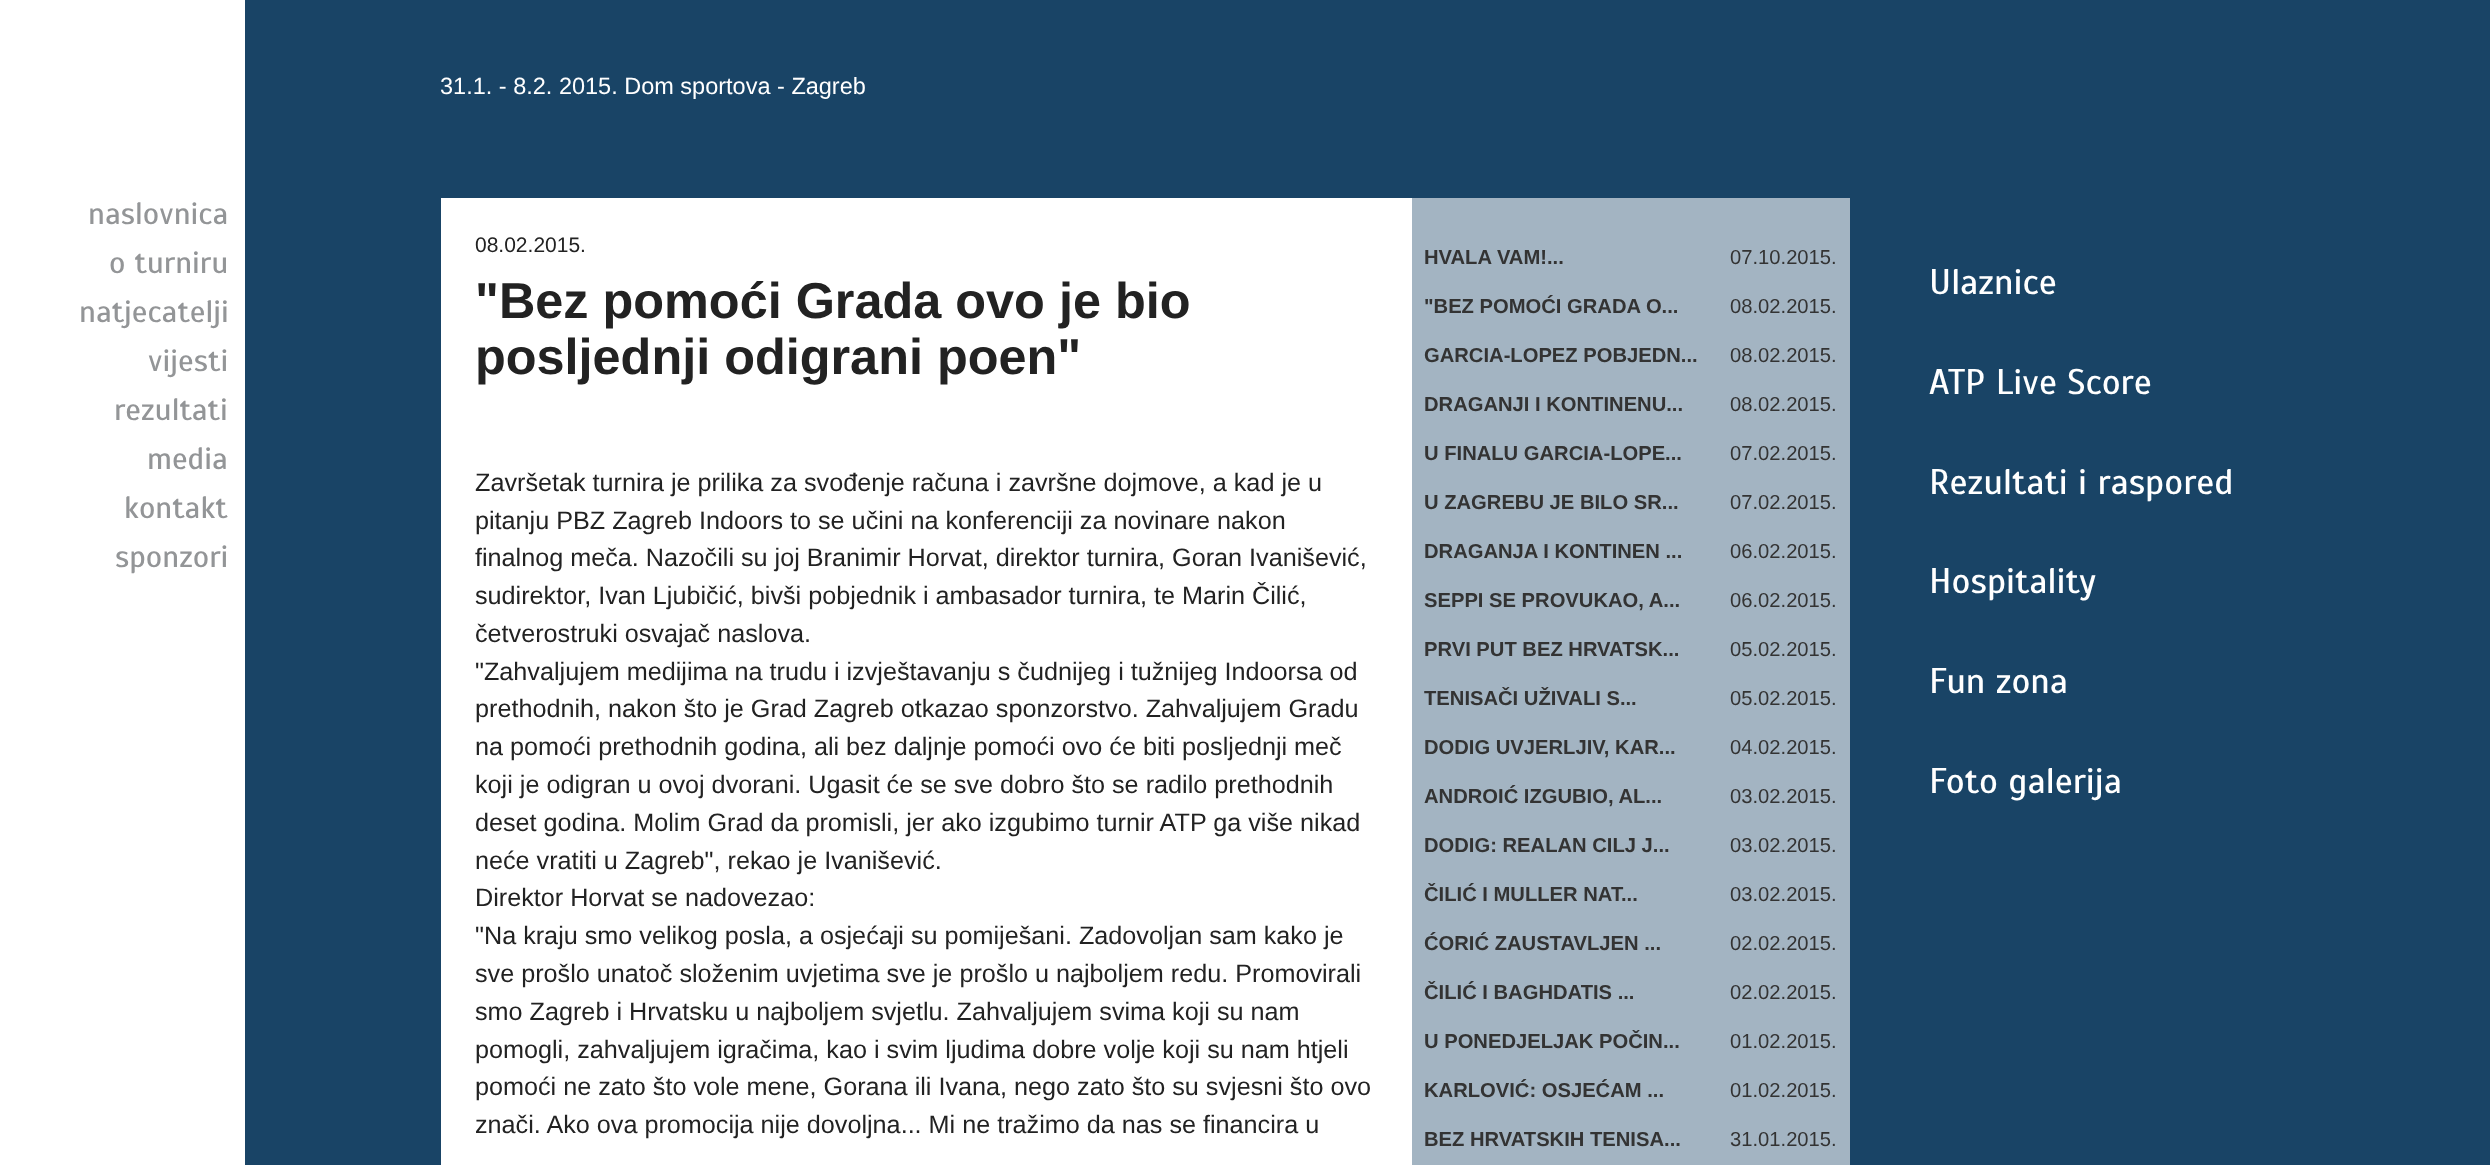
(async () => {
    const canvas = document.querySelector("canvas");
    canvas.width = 2490;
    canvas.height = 1165;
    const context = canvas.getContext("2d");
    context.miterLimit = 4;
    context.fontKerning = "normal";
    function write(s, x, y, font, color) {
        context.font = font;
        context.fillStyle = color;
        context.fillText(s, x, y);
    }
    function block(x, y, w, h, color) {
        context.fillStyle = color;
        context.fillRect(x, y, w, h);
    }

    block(0, 0, 2490, 1165, "rgb(25, 68, 102)");
    block(0, 0, 245, 1165, "rgb(255, 255, 255)");
    write("naslovnica", 88, 224, "31px Scada", "rgb(147, 149, 151)");
    write("o turniru", 109, 273, "31px Scada", "rgb(147, 149, 151)");
    write("natjecatelji", 79, 322, "31px Scada", "rgb(147, 149, 151)");
    write("vijesti", 148, 371, "31px Scada", "rgb(147, 149, 151)");
    write("rezultati", 114, 420, "31px Scada", "rgb(147, 149, 151)");
    write("media", 147, 469, "31px Scada", "rgb(147, 149, 151)");
    write("kontakt", 124, 518, "31px Scada", "rgb(147, 149, 151)");
    write("sponzori", 115, 567, "31px Scada", "rgb(147, 149, 151)");
    write("31.1. - 8.2. 2015. Dom sportova - Zagreb", 440, 94, "23.5px Liberation Sans", "rgb(255, 255, 255)");
    block(441, 198, 971, 967, "rgb(255, 255, 255)");
    write("08.02.2015.", 475, 252, "21px Liberation Sans", "rgb(34, 34, 34)");
    write("\"Bez pomoći Grada ovo je bio", 475, 318, "bold 50.4px Liberation Sans", "rgb(34, 34, 34)");
    write("posljednji odigrani poen\"", 475, 374, "bold 50.4px Liberation Sans", "rgb(34, 34, 34)");
    write("Završetak turnira je prilika za svođenje računa i završne dojmove, a kad je u", 475, 491, "25.2px Liberation Sans", "rgb(34, 34, 34)");
    write("pitanju PBZ Zagreb Indoors to se učini na konferenciji za novinare nakon", 475, 529, "25.2px Liberation Sans", "rgb(34, 34, 34)");
    write("finalnog meča. Nazočili su joj Branimir Horvat, direktor turnira, Goran Ivanišević,", 475, 566, "25.2px Liberation Sans", "rgb(34, 34, 34)");
    write("sudirektor, Ivan Ljubičić, bivši pobjednik i ambasador turnira, te Marin Čilić,", 475, 604, "25.2px Liberation Sans", "rgb(34, 34, 34)");
    write("četverostruki osvajač naslova.", 475, 642, "25.2px Liberation Sans", "rgb(34, 34, 34)");
    write("\"Zahvaljujem medijima na trudu i izvještavanju s čudnijeg i tužnijeg Indoorsa od", 475, 680, "25.2px Liberation Sans", "rgb(34, 34, 34)");
    write("prethodnih, nakon što je Grad Zagreb otkazao sponzorstvo. Zahvaljujem Gradu", 475, 717, "25.2px Liberation Sans", "rgb(34, 34, 34)");
    write("na pomoći prethodnih godina, ali bez daljnje pomoći ovo će biti posljednji meč", 475, 755, "25.2px Liberation Sans", "rgb(34, 34, 34)");
    write("koji je odigran u ovoj dvorani. Ugasit će se sve dobro što se radilo prethodnih", 475, 793, "25.2px Liberation Sans", "rgb(34, 34, 34)");
    write("deset godina. Molim Grad da promisli, jer ako izgubimo turnir ATP ga više nikad", 475, 831, "25.2px Liberation Sans", "rgb(34, 34, 34)");
    write("neće vratiti u Zagreb\", rekao je Ivanišević.", 475, 869, "25.2px Liberation Sans", "rgb(34, 34, 34)");
    write("Direktor Horvat se nadovezao:", 475, 906, "25.2px Liberation Sans", "rgb(34, 34, 34)");
    write("\"Na kraju smo velikog posla, a osjećaji su pomiješani. Zadovoljan sam kako je", 475, 944, "25.2px Liberation Sans", "rgb(34, 34, 34)");
    write("sve prošlo unatoč složenim uvjetima sve je prošlo u najboljem redu. Promovirali", 475, 982, "25.2px Liberation Sans", "rgb(34, 34, 34)");
    write("smo Zagreb i Hrvatsku u najboljem svjetlu. Zahvaljujem svima koji su nam", 475, 1020, "25.2px Liberation Sans", "rgb(34, 34, 34)");
    write("pomogli, zahvaljujem igračima, kao i svim ljudima dobre volje koji su nam htjeli", 475, 1058, "25.2px Liberation Sans", "rgb(34, 34, 34)");
    write("pomoći ne zato što vole mene, Gorana ili Ivana, nego zato što su svjesni što ovo", 475, 1095, "25.2px Liberation Sans", "rgb(34, 34, 34)");
    write("znači. Ako ova promocija nije dovoljna... Mi ne tražimo da nas se financira u", 475, 1133, "25.2px Liberation Sans", "rgb(34, 34, 34)");
    block(1412, 198, 438, 967, "rgb(163, 180, 194)");
    write("HVALA VAM!...", 1424, 264, "bold 20.2px Liberation Sans", "rgb(51, 51, 51)");
    write("07.10.2015.", 1730, 264, "20.2px Liberation Sans", "rgb(51, 51, 51)");
    write("\"BEZ POMOĆI GRADA O...", 1424, 313, "bold 20.2px Liberation Sans", "rgb(51, 51, 51)");
    write("08.02.2015.", 1730, 313, "20.2px Liberation Sans", "rgb(51, 51, 51)");
    write("GARCIA-LOPEZ POBJEDN...", 1424, 362, "bold 20.2px Liberation Sans", "rgb(51, 51, 51)");
    write("08.02.2015.", 1730, 362, "20.2px Liberation Sans", "rgb(51, 51, 51)");
    write("DRAGANJI I KONTINENU...", 1424, 411, "bold 20.2px Liberation Sans", "rgb(51, 51, 51)");
    write("08.02.2015.", 1730, 411, "20.2px Liberation Sans", "rgb(51, 51, 51)");
    write("U FINALU GARCIA-LOPE...", 1424, 460, "bold 20.2px Liberation Sans", "rgb(51, 51, 51)");
    write("07.02.2015.", 1730, 460, "20.2px Liberation Sans", "rgb(51, 51, 51)");
    write("U ZAGREBU JE BILO SR...", 1424, 509, "bold 20.2px Liberation Sans", "rgb(51, 51, 51)");
    write("07.02.2015.", 1730, 509, "20.2px Liberation Sans", "rgb(51, 51, 51)");
    write("DRAGANJA I KONTINEN ...", 1424, 558, "bold 20.2px Liberation Sans", "rgb(51, 51, 51)");
    write("06.02.2015.", 1730, 558, "20.2px Liberation Sans", "rgb(51, 51, 51)");
    write("SEPPI SE PROVUKAO, A...", 1424, 607, "bold 20.2px Liberation Sans", "rgb(51, 51, 51)");
    write("06.02.2015.", 1730, 607, "20.2px Liberation Sans", "rgb(51, 51, 51)");
    write("PRVI PUT BEZ HRVATSK...", 1424, 656, "bold 20.2px Liberation Sans", "rgb(51, 51, 51)");
    write("05.02.2015.", 1730, 656, "20.2px Liberation Sans", "rgb(51, 51, 51)");
    write("TENISAČI UŽIVALI S...", 1424, 705, "bold 20.2px Liberation Sans", "rgb(51, 51, 51)");
    write("05.02.2015.", 1730, 705, "20.2px Liberation Sans", "rgb(51, 51, 51)");
    write("DODIG UVJERLJIV, KAR...", 1424, 754, "bold 20.2px Liberation Sans", "rgb(51, 51, 51)");
    write("04.02.2015.", 1730, 754, "20.2px Liberation Sans", "rgb(51, 51, 51)");
    write("ANDROIĆ IZGUBIO, AL...", 1424, 803, "bold 20.2px Liberation Sans", "rgb(51, 51, 51)");
    write("03.02.2015.", 1730, 803, "20.2px Liberation Sans", "rgb(51, 51, 51)");
    write("DODIG: REALAN CILJ J...", 1424, 852, "bold 20.2px Liberation Sans", "rgb(51, 51, 51)");
    write("03.02.2015.", 1730, 852, "20.2px Liberation Sans", "rgb(51, 51, 51)");
    write("ČILIĆ I MULLER NAT...", 1424, 901, "bold 20.2px Liberation Sans", "rgb(51, 51, 51)");
    write("03.02.2015.", 1730, 901, "20.2px Liberation Sans", "rgb(51, 51, 51)");
    write("ĆORIĆ ZAUSTAVLJEN ...", 1424, 950, "bold 20.2px Liberation Sans", "rgb(51, 51, 51)");
    write("02.02.2015.", 1730, 950, "20.2px Liberation Sans", "rgb(51, 51, 51)");
    write("ČILIĆ I BAGHDATIS ...", 1424, 999, "bold 20.2px Liberation Sans", "rgb(51, 51, 51)");
    write("02.02.2015.", 1730, 999, "20.2px Liberation Sans", "rgb(51, 51, 51)");
    write("U PONEDJELJAK POČIN...", 1424, 1048, "bold 20.2px Liberation Sans", "rgb(51, 51, 51)");
    write("01.02.2015.", 1730, 1048, "20.2px Liberation Sans", "rgb(51, 51, 51)");
    write("KARLOVIĆ: OSJEĆAM ...", 1424, 1097, "bold 20.2px Liberation Sans", "rgb(51, 51, 51)");
    write("01.02.2015.", 1730, 1097, "20.2px Liberation Sans", "rgb(51, 51, 51)");
    write("BEZ HRVATSKIH TENISA...", 1424, 1146, "bold 20.2px Liberation Sans", "rgb(51, 51, 51)");
    write("31.01.2015.", 1730, 1146, "20.2px Liberation Sans", "rgb(51, 51, 51)");
    write("Ulaznice", 1929, 294, "35.75px Scada", "rgb(255, 255, 255)");
    write("ATP Live Score", 1929, 394, "35.75px Scada", "rgb(255, 255, 255)");
    write("Rezultati i raspored", 1929, 494, "35.75px Scada", "rgb(255, 255, 255)");
    write("Hospitality", 1929, 593, "35.75px Scada", "rgb(255, 255, 255)");
    write("Fun zona", 1929, 693, "35.75px Scada", "rgb(255, 255, 255)");
    write("Foto galerija", 1929, 793, "35.75px Scada", "rgb(255, 255, 255)");
})();
